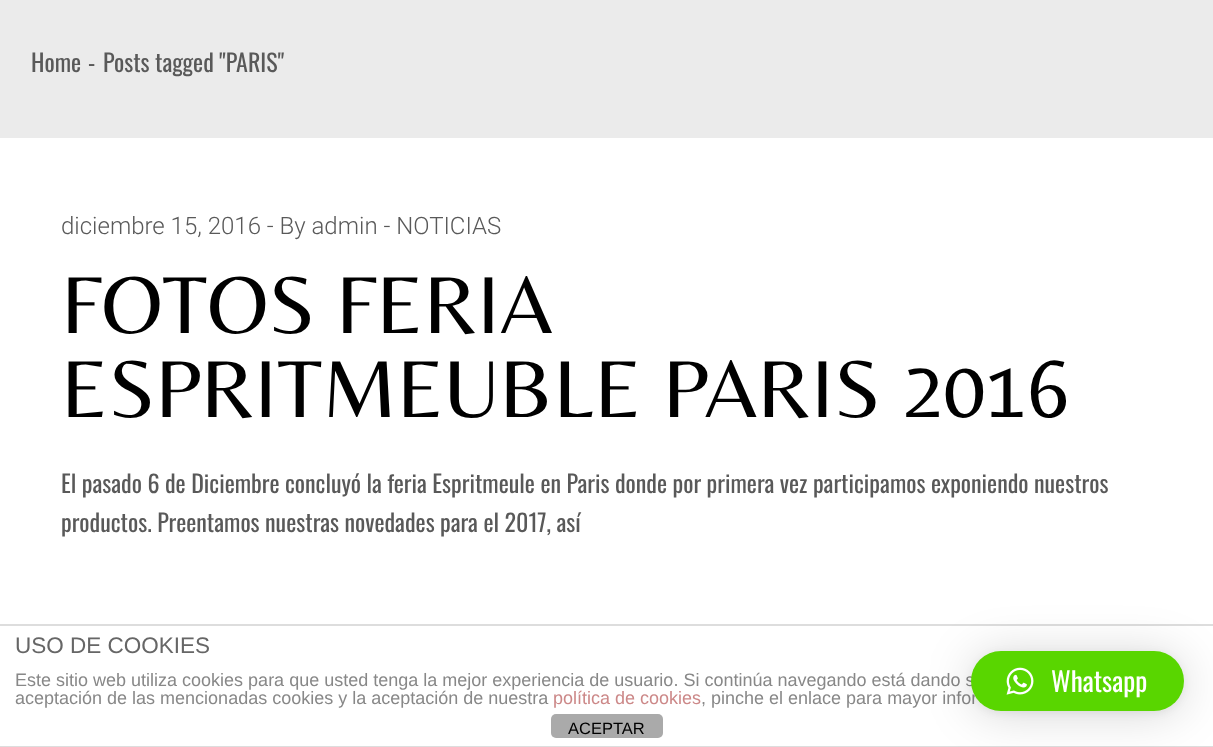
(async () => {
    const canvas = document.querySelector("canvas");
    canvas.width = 1213;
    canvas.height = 747;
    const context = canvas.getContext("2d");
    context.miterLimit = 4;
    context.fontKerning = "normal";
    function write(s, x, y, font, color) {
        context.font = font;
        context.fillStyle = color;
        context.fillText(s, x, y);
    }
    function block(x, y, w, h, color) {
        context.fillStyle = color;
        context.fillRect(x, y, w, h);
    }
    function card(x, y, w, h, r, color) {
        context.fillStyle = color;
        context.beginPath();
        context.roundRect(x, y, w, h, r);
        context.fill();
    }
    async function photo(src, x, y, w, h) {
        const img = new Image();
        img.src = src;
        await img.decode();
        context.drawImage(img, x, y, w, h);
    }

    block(0, 0, 1213, 747, "rgb(255, 255, 255)");
    block(0, 0, 1213, 138, "rgb(235, 235, 235)");
    write("Home", 31, 72, "24px Oswald", "rgb(89, 89, 89)");
    write("-", 88, 72, "24px Oswald", "rgb(89, 89, 89)");
    write("Posts tagged \"PARIS\"", 103, 72, "24px Oswald", "rgb(89, 89, 89)");
    write("diciembre 15, 2016 - By admin - NOTICIAS", 61, 234, "300 24px Roboto", "rgb(89, 89, 89)");
    write("FOTOS FERIA", 61, 333, "84px Belleza", "rgb(0, 0, 0)");
    write("ESPRITMEUBLE PARIS 2016", 61, 417, "84px Belleza", "rgb(0, 0, 0)");
    write("El pasado 6 de Diciembre concluyó la feria Espritmeule en Paris donde por primera vez participamos exponiendo nuestros", 61, 493, "24px Oswald", "rgb(89, 89, 89)");
    write("productos. Preentamos nuestras novedades para el 2017, así", 61, 532, "24px Oswald", "rgb(89, 89, 89)");
    block(0, 624, 1213, 2, "rgb(221, 221, 221)");
    block(0, 746, 1213, 1, "rgb(221, 221, 221)");
    write("USO DE COOKIES", 15, 653, "22.5px Liberation Sans", "rgb(102, 102, 102)");
    write("Este sitio web utiliza cookies para que usted tenga la mejor experiencia de usuario. Si continúa navegando está dando s", 15, 686, "18px Liberation Sans", "rgb(136, 136, 136)");
    write("aceptación de las mencionadas cookies y la aceptación de nuestra", 15, 704, "18px Liberation Sans", "rgb(136, 136, 136)");
    write("política de cookies", 553, 704, "18px Liberation Sans", "rgb(204, 136, 136)");
    write(", pinche el enlace para mayor infor", 701, 704, "18px Liberation Sans", "rgb(136, 136, 136)");
    card(551, 714, 112, 24, 5, "rgb(170, 170, 170)");
    write("ACEPTAR", 568, 734, "16.5px Liberation Sans", "rgb(0, 0, 0)");
    context.fillStyle = "rgba(0, 0, 0, 0.16)";
    context.filter = "blur(24px)";
    context.beginPath();
    context.roundRect(971, 654, 213, 60, 30);
    context.fill();
    context.filter = "none";
    context.fillStyle = "rgba(0, 0, 0, 0.06)";
    context.filter = "blur(4.5px)";
    context.beginPath();
    context.roundRect(971, 653, 213, 60, 30);
    context.fill();
    context.filter = "none";
    card(971, 651, 213, 60, 30, "rgb(89, 214, 0)");
    await photo("media/1.png", 1006, 667, 28, 28);
    write("Whatsapp", 1051, 692, "27px Oswald", "rgb(255, 255, 255)");
})();
